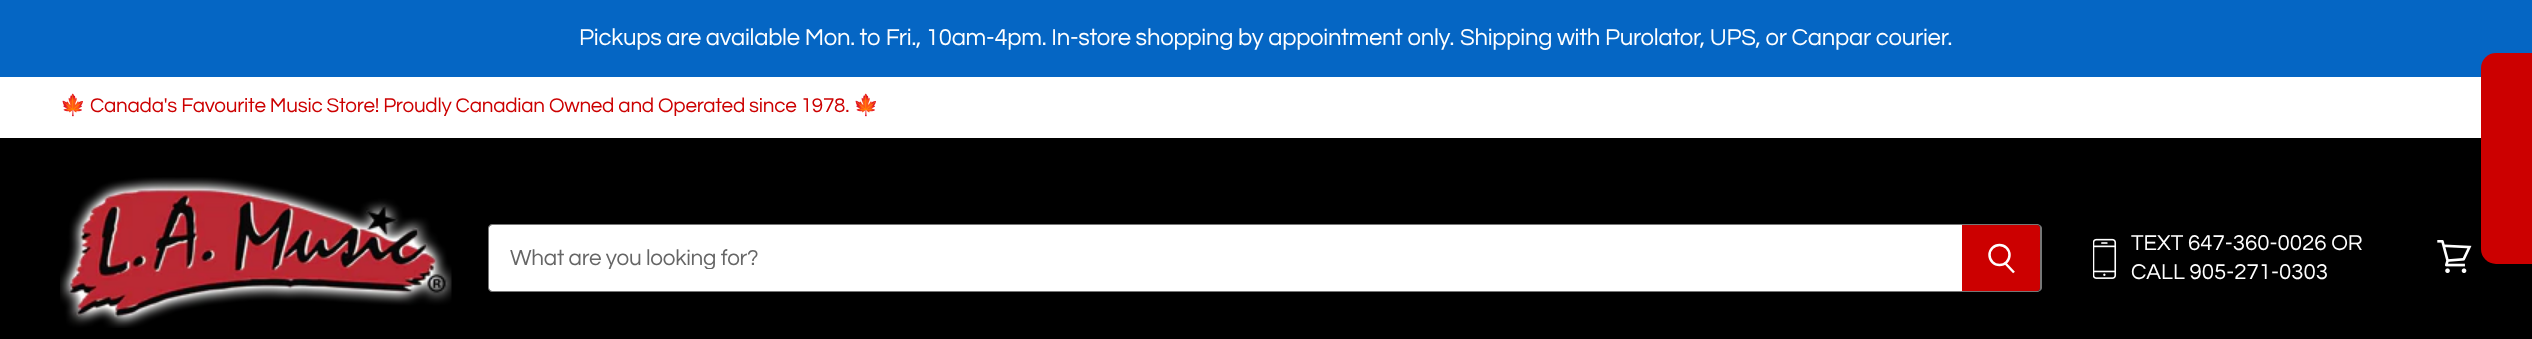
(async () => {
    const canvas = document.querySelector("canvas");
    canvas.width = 2532;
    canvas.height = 339;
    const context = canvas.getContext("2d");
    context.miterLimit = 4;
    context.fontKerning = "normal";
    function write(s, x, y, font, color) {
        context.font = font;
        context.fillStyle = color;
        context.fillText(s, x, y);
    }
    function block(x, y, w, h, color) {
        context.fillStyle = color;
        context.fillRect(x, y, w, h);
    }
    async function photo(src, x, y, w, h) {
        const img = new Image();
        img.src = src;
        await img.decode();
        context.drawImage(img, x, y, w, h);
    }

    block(0, 0, 2532, 339, "rgb(255, 255, 255)");
    block(0, 0, 2532, 77, "rgb(5, 102, 196)");
    context.letterSpacing = "-0.25px";
    write("Pickups are available Mon. to Fri., 10am-4pm. In-store shopping by appointment only.", 579, 45, "23.9px Questrial", "rgb(255, 255, 255)");
    write("Shipping with Purolator, UPS, or Canpar courier.", 1460, 45, "23.9px Questrial", "rgb(255, 255, 255)");
    write("🍁", 60, 112, "20.7px Noto Color Emoji", "rgb(204, 0, 0)");
    write("Canada's Favourite Music Store! Proudly Canadian Owned and Operated since 1978.", 90, 112, "20.7px Questrial", "rgb(204, 0, 0)");
    write("🍁", 853, 112, "20.7px Noto Color Emoji", "rgb(204, 0, 0)");
    block(0, 138, 2532, 201, "rgb(0, 0, 0)");
    context.fillStyle = "rgb(204, 0, 0)";
    context.beginPath();
    context.roundRect(2481, 53, 51, 211, [15, 0, 0, 15]);
    context.fill();
    await photo("media/1.png", 60, 177, 392, 151);
    context.fillStyle = "rgb(255, 255, 255)";
    context.beginPath();
    context.roundRect(489, 225, 1473, 66, [3, 0, 0, 3]);
    context.fill();
    context.fillStyle = "rgb(119, 119, 119)";
    context.beginPath();
    context.moveTo(492, 224);
    context.lineTo(1962, 224);
    context.lineTo(1962, 292);
    context.lineTo(492, 292);
    context.bezierCurveTo(490, 292, 488, 290, 488, 288);
    context.lineTo(488, 228);
    context.bezierCurveTo(488, 226, 490, 224, 492, 224);
    context.closePath();
    context.moveTo(492, 225);
    context.lineTo(1962, 225);
    context.lineTo(1962, 291);
    context.lineTo(492, 291);
    context.bezierCurveTo(490, 291, 489, 290, 489, 288);
    context.lineTo(489, 228);
    context.bezierCurveTo(489, 226, 490, 225, 492, 225);
    context.closePath();
    context.fill("evenodd");
    context.save();
    context.beginPath();
    context.rect(510, 246, 1431, 23);
    context.clip();
    write("What are you looking for?", 510, 265, "22.5px Questrial", "rgb(102, 102, 102)");
    context.restore();
    context.fillStyle = "rgb(204, 0, 0)";
    context.beginPath();
    context.roundRect(1962, 225, 78, 66, [0, 3, 3, 0]);
    context.fill();
    context.fillStyle = "rgb(119, 119, 119)";
    context.beginPath();
    context.moveTo(1962, 224);
    context.lineTo(2037, 224);
    context.bezierCurveTo(2039, 224, 2042, 226, 2042, 228);
    context.lineTo(2042, 288);
    context.bezierCurveTo(2042, 290, 2039, 292, 2037, 292);
    context.lineTo(1962, 292);
    context.closePath();
    context.moveTo(1962, 225);
    context.lineTo(2037, 225);
    context.bezierCurveTo(2039, 225, 2040, 226, 2040, 228);
    context.lineTo(2040, 288);
    context.bezierCurveTo(2040, 290, 2039, 291, 2037, 291);
    context.lineTo(1962, 291);
    context.closePath();
    context.fill("evenodd");
    context.beginPath();
    context.moveTo(2014, 272.5);
    context.lineTo(2005.5, 263.5);
    context.strokeStyle = "rgb(255, 255, 255)";
    context.lineWidth = 2.5;
    context.stroke();
    context.beginPath();
    context.arc(1999.5, 255, 10, 0, Math.PI * 2);
    context.stroke();
    await photo("media/2.png", 2093, 238, 24, 41);
    context.letterSpacing = "0px";
    write("TEXT 647-360-0026 OR", 2131, 250, "22.25px Questrial", "rgb(255, 255, 255)");
    write("CALL 905-271-0303", 2131, 279, "22.25px Questrial", "rgb(255, 255, 255)");
    await photo("media/3.png", 2437, 240, 35, 33);
})();
